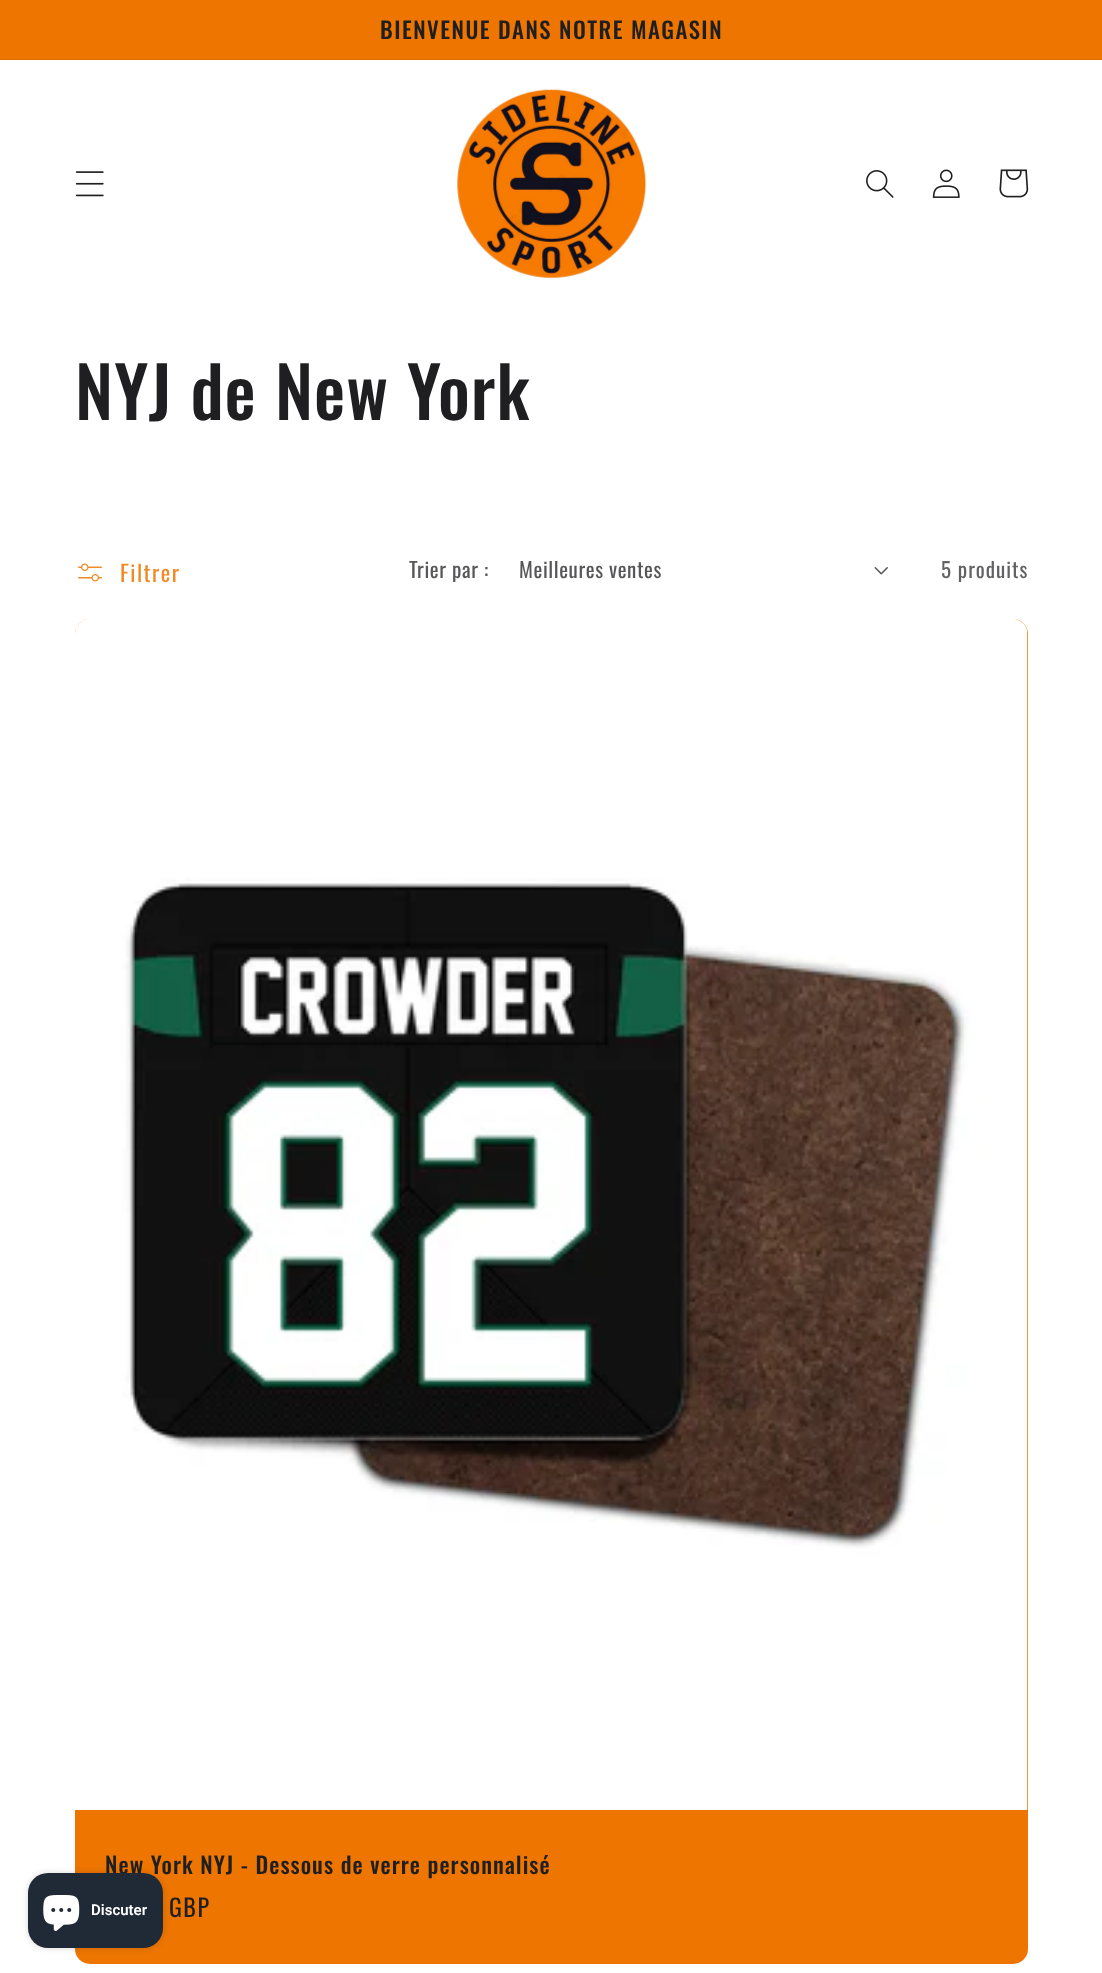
(async () => {
    const canvas = document.querySelector("canvas");
    canvas.width = 1102;
    canvas.height = 1973;
    const context = canvas.getContext("2d");
    context.miterLimit = 4;
    context.fontKerning = "normal";
    function write(s, x, y, font, color) {
        context.font = font;
        context.fillStyle = color;
        context.fillText(s, x, y);
    }
    function block(x, y, w, h, color) {
        context.fillStyle = color;
        context.fillRect(x, y, w, h);
    }
    function card(x, y, w, h, r, color) {
        context.fillStyle = color;
        context.beginPath();
        context.roundRect(x, y, w, h, r);
        context.fill();
    }
    async function photo(src, x, y, w, h) {
        const img = new Image();
        img.src = src;
        await img.decode();
        context.drawImage(img, x, y, w, h);
    }

    block(0, 0, 1102, 1973, "rgb(255, 255, 255)");
    block(0, 0, 1102, 59, "rgb(237, 117, 0)");
    block(0, 59, 1102, 1, "rgb(221, 110, 3)");
    context.letterSpacing = "1.5px";
    write("BIENVENUE DANS NOTRE MAGASIN", 380, 39, "500 22.75px Oswald", "rgb(31, 31, 33)");
    await photo("media/1.png", 75, 171, 29, 26);
    await photo("media/2.png", 457, 89, 190, 189);
    await photo("media/3.png", 866, 170, 28, 28);
    await photo("media/4.png", 932, 169, 28, 29);
    await photo("media/5.png", 999, 169, 30, 29);
    context.letterSpacing = "1.05px";
    write("NYJ de New York", 75, 420, "500 70px Oswald", "rgb(31, 31, 33)");
    await photo("media/6.png", 78, 563, 24, 19);
    context.letterSpacing = "1.5px";
    write("Filtrer", 120, 582, "22.5px Oswald", "rgb(240, 138, 38)");
    context.letterSpacing = "0.6px";
    write("Trier par :", 409, 578, "21px Oswald", "rgb(87, 87, 89)");
    write("Meilleures ventes", 519, 578, "21px Oswald", "rgb(87, 87, 89)");
    await photo("media/7.png", 874, 567, 14, 8);
    context.letterSpacing = "1px";
    write("5 produits", 941, 578, "21px Oswald", "rgb(98, 98, 100)");
    card(75, 619, 953, 1345, 15, "rgb(237, 117, 0)");
    await photo("media/8.png", 75, 619, 953, 1191);
    context.letterSpacing = "1.05px";
    write("New York NYJ - Dessous de verre personnalisé", 105, 1874, "500 22.75px Oswald", "rgb(31, 31, 33)");
    context.letterSpacing = "1.5px";
    write("GBP", 169, 1917, "24px Oswald", "rgb(31, 31, 33)");
    context.fillStyle = "rgba(0, 0, 0, 0.15)";
    context.filter = "blur(3px)";
    context.beginPath();
    context.roundRect(28, 1873, 135, 75, 20);
    context.fill();
    context.filter = "none";
    card(28, 1873, 135, 75, 20, "rgb(32, 42, 54)");
    await photo("media/9.png", 43, 1895, 37, 36);
    context.letterSpacing = "0px";
    write("Discuter", 91, 1915, "600 15px Roboto", "rgb(255, 255, 255)");
})();
